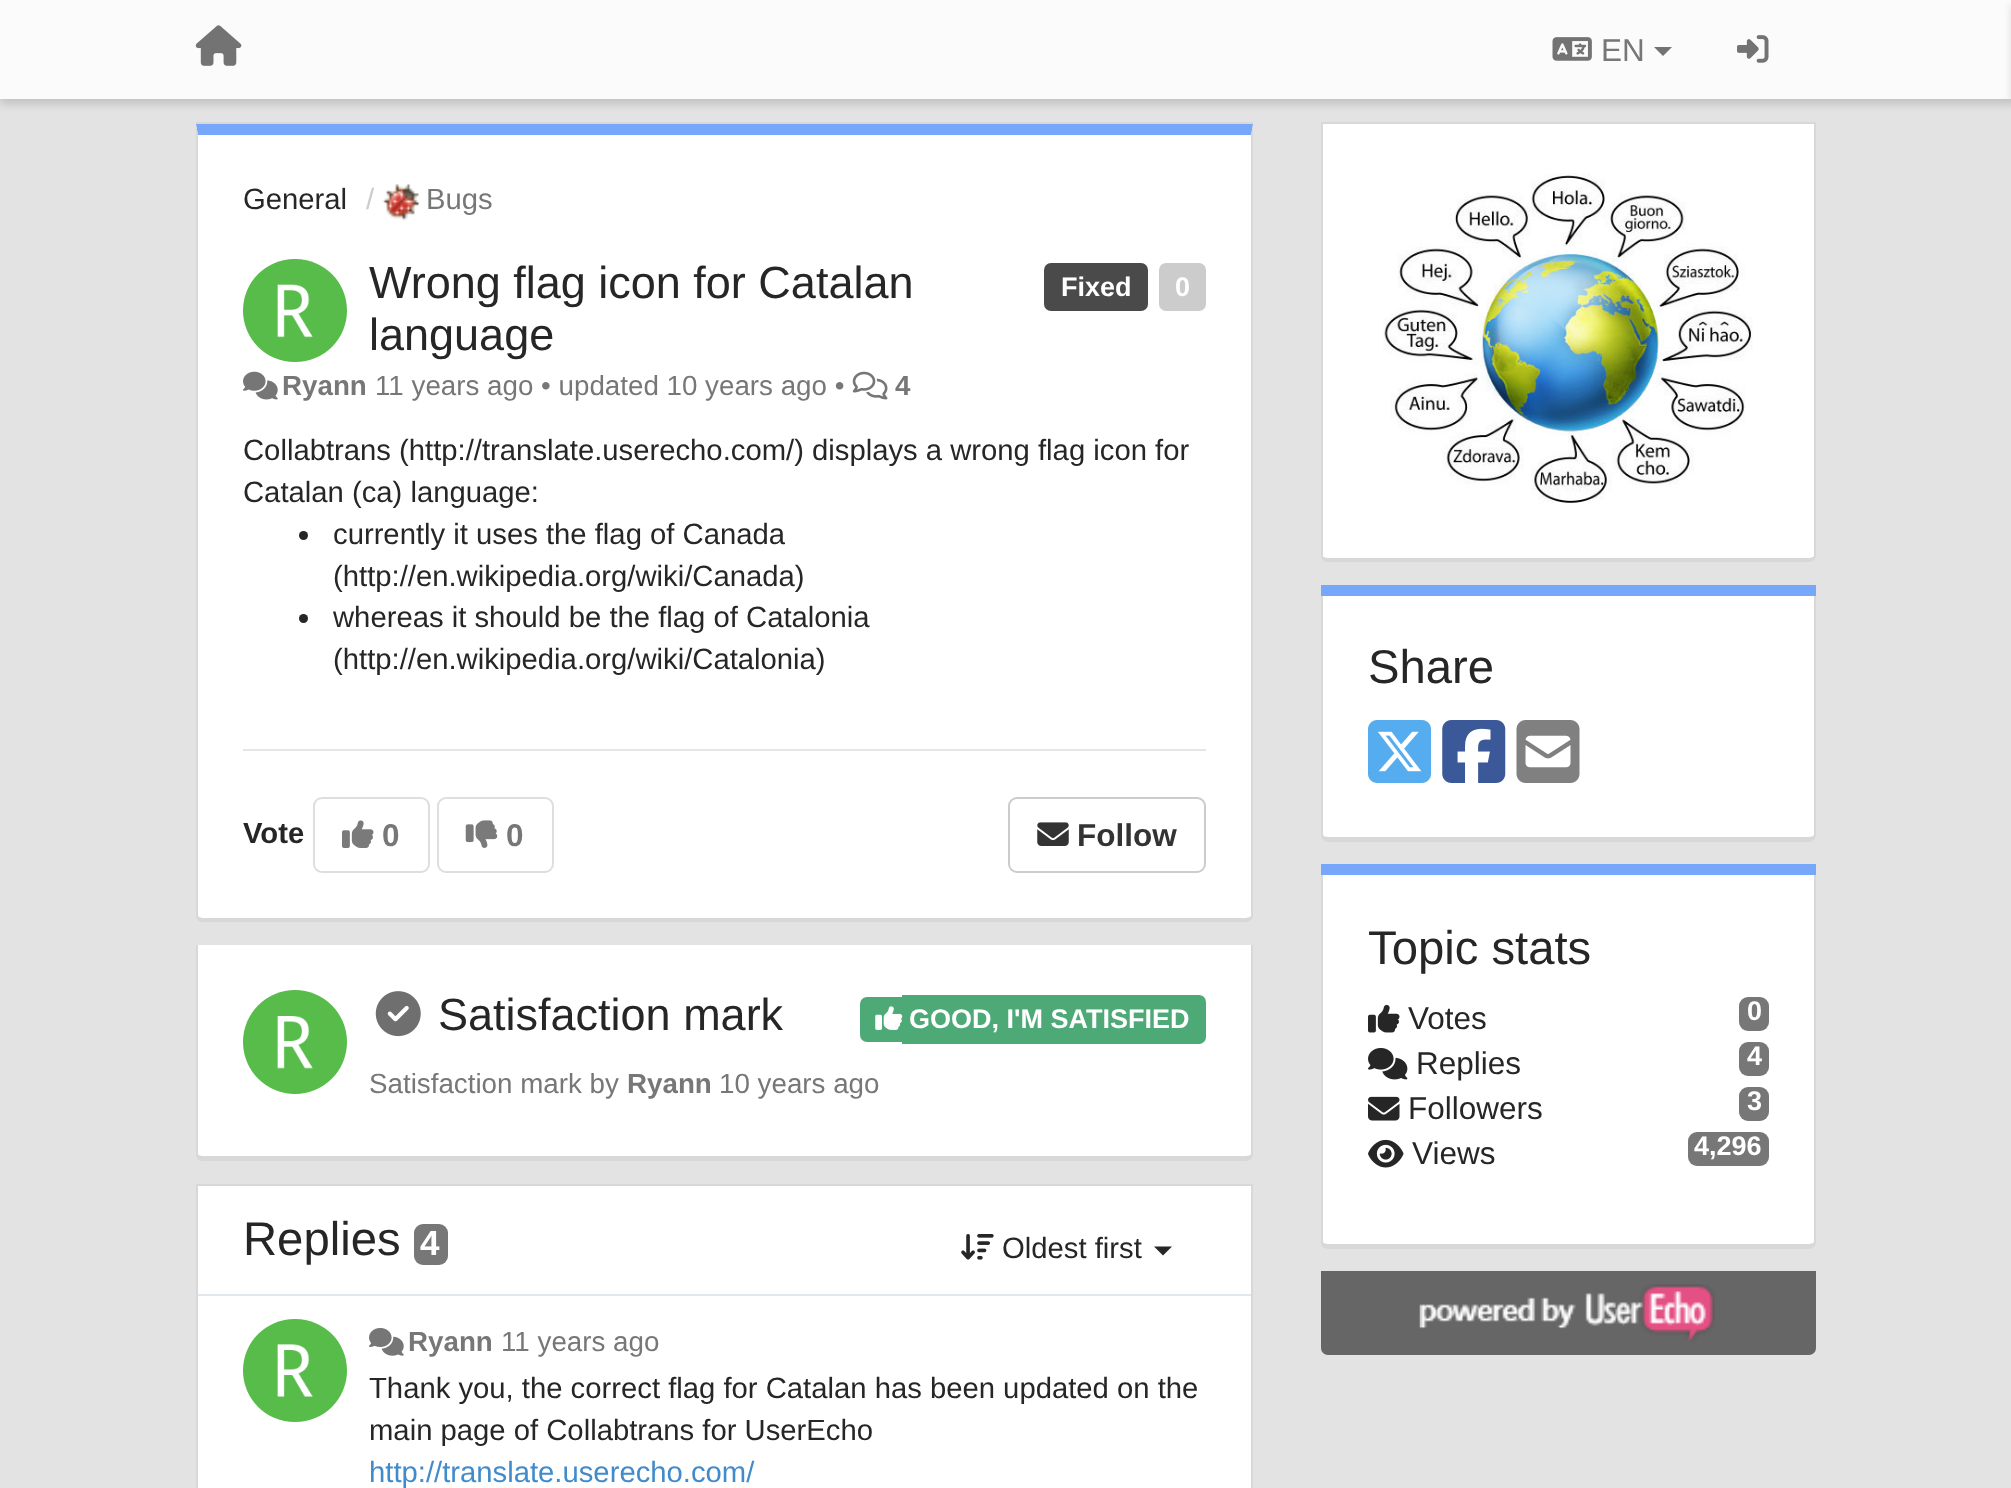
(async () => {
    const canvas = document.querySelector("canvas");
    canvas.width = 2011;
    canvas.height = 1488;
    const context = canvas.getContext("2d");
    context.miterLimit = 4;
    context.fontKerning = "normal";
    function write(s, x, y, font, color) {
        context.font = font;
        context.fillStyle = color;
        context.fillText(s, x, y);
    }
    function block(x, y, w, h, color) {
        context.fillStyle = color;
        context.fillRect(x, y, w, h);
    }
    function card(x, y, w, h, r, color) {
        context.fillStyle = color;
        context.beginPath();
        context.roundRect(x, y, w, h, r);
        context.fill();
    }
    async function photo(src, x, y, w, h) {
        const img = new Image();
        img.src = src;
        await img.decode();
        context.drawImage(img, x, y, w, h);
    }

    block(0, 0, 2011, 1488, "rgb(227, 227, 227)");
    context.fillStyle = "rgba(0, 0, 0, 0.15)";
    context.filter = "blur(4.5px)";
    context.beginPath();
    context.rect(0, 5, 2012, 99);
    context.fill();
    context.filter = "none";
    block(0, 0, 2011, 99, "rgb(251, 251, 251)");
    await photo("media/1.png", 195, 25, 47, 41);
    await photo("media/2.png", 1552, 37, 40, 24);
    write("EN", 1601, 61, "31.5px Liberation Sans", "rgb(119, 119, 119)");
    context.fillStyle = "rgb(115, 115, 115)";
    context.beginPath();
    context.moveTo(1654, 47);
    context.lineTo(1672, 47);
    context.lineTo(1663, 56);
    context.closePath();
    context.fill();
    await photo("media/3.png", 1737, 35, 32, 28);
    context.fillStyle = "rgba(0, 0, 0, 0.15)";
    context.filter = "blur(4.5px)";
    context.beginPath();
    context.rect(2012, 5, 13, 99);
    context.fill();
    context.filter = "none";
    block(196, 122, 1057, 2, "rgb(216, 216, 216)");
    context.fillStyle = "rgb(255, 255, 255)";
    context.beginPath();
    context.moveTo(198, 135);
    context.lineTo(1251, 135);
    context.lineTo(1251, 916);
    context.bezierCurveTo(1251, 917, 1249, 918, 1246, 918);
    context.lineTo(202, 918);
    context.bezierCurveTo(200, 918, 198, 917, 198, 916);
    context.closePath();
    context.fill();
    context.fillStyle = "rgb(118, 167, 250)";
    context.beginPath();
    context.moveTo(196, 124);
    context.lineTo(198, 135);
    context.lineTo(1251, 135);
    context.lineTo(1253, 124);
    context.closePath();
    context.fill();
    context.fillStyle = "rgb(216, 216, 216)";
    context.beginPath();
    context.moveTo(1252, 919);
    context.lineTo(1253, 916);
    context.lineTo(1253, 125);
    context.lineTo(1251, 135);
    context.lineTo(1251, 916);
    context.lineTo(1250, 917);
    context.closePath();
    context.fill();
    context.beginPath();
    context.moveTo(1252, 919);
    context.bezierCurveTo(1250, 921, 1248, 922, 1246, 922);
    context.lineTo(202, 922);
    context.bezierCurveTo(200, 922, 198, 921, 197, 919);
    context.lineTo(199, 917);
    context.lineTo(202, 918);
    context.lineTo(1246, 918);
    context.lineTo(1250, 917);
    context.closePath();
    context.fill();
    context.beginPath();
    context.moveTo(198, 135);
    context.lineTo(196, 125);
    context.lineTo(196, 916);
    context.lineTo(197, 919);
    context.lineTo(199, 917);
    context.lineTo(198, 916);
    context.closePath();
    context.fill();
    write("General", 243, 209, "29.25px Liberation Sans", "rgb(38, 38, 38)");
    write("/", 366, 209, "29.25px Liberation Sans", "rgb(204, 204, 204)");
    await photo("media/4.png", 382, 184, 37, 37);
    write("Bugs", 426, 209, "29.25px Liberation Sans", "rgb(119, 119, 119)");
    card(243, 259, 104, 103, 51.5, "rgb(88, 188, 74)");
    await photo("media/5.png", 277, 284, 36, 54);
    write("Wrong flag icon for Catalan", 369, 298, "45px Liberation Sans", "rgb(38, 38, 38)");
    write("language", 369, 350, "45px Liberation Sans", "rgb(38, 38, 38)");
    card(1044, 263, 104, 48, 7, "rgb(74, 74, 74)");
    write("Fixed", 1061, 296, "bold 27px Liberation Sans", "rgb(255, 255, 255)");
    card(1159, 263, 47, 48, 7, "rgb(204, 204, 204)");
    write("0", 1175, 296, "bold 27px Liberation Sans", "rgb(255, 255, 255)");
    await photo("media/6.png", 243, 371, 35, 29);
    write("Ryann", 282, 395, "bold 27.75px Liberation Sans", "rgb(119, 119, 119)");
    write("11 years ago • updated 10 years ago •", 375, 395, "27.75px Liberation Sans", "rgb(119, 119, 119)");
    await photo("media/7.png", 852, 371, 36, 29);
    write("4", 895, 395, "bold 27.75px Liberation Sans", "rgb(119, 119, 119)");
    write("Collabtrans (http://translate.userecho.com/) displays a wrong flag icon for", 243, 460, "29.25px Liberation Sans", "rgb(38, 38, 38)");
    write("Catalan (ca) language:", 243, 502, "29.25px Liberation Sans", "rgb(38, 38, 38)");
    context.beginPath();
    context.arc(303.5, 535.5, 4.5, 0, Math.PI * 2);
    context.fill();
    write("currently it uses the flag of Canada", 333, 544, "29.25px Liberation Sans", "rgb(38, 38, 38)");
    write("(http://en.wikipedia.org/wiki/Canada)", 333, 586, "29.25px Liberation Sans", "rgb(38, 38, 38)");
    context.beginPath();
    context.arc(303.5, 618.5, 4.5, 0, Math.PI * 2);
    context.fill();
    write("whereas it should be the flag of Catalonia", 333, 627, "29.25px Liberation Sans", "rgb(38, 38, 38)");
    write("(http://en.wikipedia.org/wiki/Catalonia)", 333, 669, "29.25px Liberation Sans", "rgb(38, 38, 38)");
    block(243, 749, 963, 2, "rgb(229, 229, 229)");
    write("Vote", 243, 843, "bold 29.25px Liberation Sans", "rgb(38, 38, 38)");
    context.beginPath();
    context.roundRect(314, 798, 115, 74, 8);
    context.strokeStyle = "rgb(222, 222, 222)";
    context.lineWidth = 2;
    context.stroke();
    await photo("media/8.png", 342, 820, 32, 28);
    write("0", 382, 846, "bold 31.5px Liberation Sans", "rgb(119, 119, 119)");
    context.beginPath();
    context.roundRect(438, 798, 115, 74, 8);
    context.stroke();
    await photo("media/9.png", 465, 820, 33, 28);
    write("0", 506, 846, "bold 31.5px Liberation Sans", "rgb(119, 119, 119)");
    context.beginPath();
    context.roundRect(1009, 798, 196, 74, 8);
    context.strokeStyle = "rgb(204, 204, 204)";
    context.stroke();
    await photo("media/10.png", 1037, 822, 32, 24);
    write("Follow", 1077, 846, "bold 31.5px Liberation Sans", "rgb(51, 51, 51)");
    context.fillStyle = "rgb(255, 255, 255)";
    context.beginPath();
    context.moveTo(198, 945);
    context.lineTo(1251, 945);
    context.lineTo(1251, 1154);
    context.bezierCurveTo(1251, 1155, 1249, 1156, 1246, 1156);
    context.lineTo(202, 1156);
    context.bezierCurveTo(200, 1156, 198, 1155, 198, 1154);
    context.closePath();
    context.fill();
    context.fillStyle = "rgb(216, 216, 216)";
    context.beginPath();
    context.moveTo(196, 945);
    context.lineTo(1253, 945);
    context.lineTo(1253, 1154);
    context.bezierCurveTo(1253, 1158, 1250, 1161, 1246, 1161);
    context.lineTo(202, 1161);
    context.bezierCurveTo(199, 1161, 196, 1158, 196, 1154);
    context.closePath();
    context.moveTo(198, 945);
    context.lineTo(1251, 945);
    context.lineTo(1251, 1154);
    context.bezierCurveTo(1251, 1155, 1249, 1156, 1246, 1156);
    context.lineTo(202, 1156);
    context.bezierCurveTo(200, 1156, 198, 1155, 198, 1154);
    context.closePath();
    context.fill("evenodd");
    context.fillStyle = "rgb(88, 188, 74)";
    context.beginPath();
    context.arc(295, 1042, 52, 0, Math.PI * 2);
    context.fill();
    await photo("media/11.png", 277, 1016, 36, 53);
    await photo("media/12.png", 375, 991, 46, 46);
    write("Satisfaction mark", 438, 1030, "45px Liberation Sans", "rgb(38, 38, 38)");
    context.fillStyle = "rgb(77, 170, 119)";
    context.beginPath();
    context.roundRect(860, 997, 42, 45, [7, 0, 0, 7]);
    context.fill();
    context.beginPath();
    context.roundRect(902, 995, 304, 49, [0, 7, 7, 0]);
    context.fill();
    await photo("media/13.png", 875, 1006, 28, 24);
    write("GOOD, I'M SATISFIED", 909, 1028, "bold 27px Liberation Sans", "rgb(255, 255, 255)");
    write("Satisfaction mark by", 369, 1093, "27.75px Liberation Sans", "rgb(119, 119, 119)");
    write("Ryann", 627, 1093, "bold 27.75px Liberation Sans", "rgb(119, 119, 119)");
    write("10 years ago", 719, 1093, "27.75px Liberation Sans", "rgb(119, 119, 119)");
    block(196, 1184, 1057, 2, "rgb(216, 216, 216)");
    block(198, 1186, 1053, 302, "rgb(255, 255, 255)");
    context.fillStyle = "rgb(216, 216, 216)";
    context.beginPath();
    context.moveTo(196, 1186);
    context.lineTo(1253, 1186);
    context.lineTo(1253, 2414);
    context.bezierCurveTo(1253, 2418, 1250, 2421, 1246, 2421);
    context.lineTo(202, 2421);
    context.bezierCurveTo(199, 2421, 196, 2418, 196, 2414);
    context.closePath();
    context.moveTo(198, 1186);
    context.lineTo(1251, 1186);
    context.lineTo(1251, 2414);
    context.bezierCurveTo(1251, 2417, 1249, 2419, 1246, 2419);
    context.lineTo(202, 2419);
    context.bezierCurveTo(200, 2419, 198, 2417, 198, 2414);
    context.closePath();
    context.fill("evenodd");
    write("Replies", 243, 1255, "47.25px Liberation Sans", "rgb(38, 38, 38)");
    card(414, 1224, 34, 41, 9, "rgb(119, 119, 119)");
    write("4", 420, 1255, "bold 35px Liberation Sans", "rgb(255, 255, 255)");
    await photo("media/14.png", 961, 1234, 33, 26);
    write("Oldest first", 1002, 1258, "29.25px Liberation Sans", "rgb(38, 38, 38)");
    context.beginPath();
    context.moveTo(1154, 1246.5);
    context.lineTo(1172, 1246.5);
    context.lineTo(1163, 1255.5);
    context.closePath();
    context.fill();
    block(198, 1294, 1053, 2, "rgb(225, 232, 237)");
    card(243, 1319, 104, 103, 51.5, "rgb(88, 188, 74)");
    await photo("media/15.png", 277, 1344, 36, 53);
    await photo("media/16.png", 369, 1327, 35, 29);
    write("Ryann", 408, 1351, "bold 27.75px Liberation Sans", "rgb(119, 119, 119)");
    write("11 years ago", 501, 1351, "27.75px Liberation Sans", "rgb(119, 119, 119)");
    write("Thank you, the correct flag for Catalan has been updated on the", 369, 1398, "29.25px Liberation Sans", "rgb(38, 38, 38)");
    write("main page of Collabtrans for UserEcho", 369, 1440, "29.25px Liberation Sans", "rgb(38, 38, 38)");
    write("http://translate.userecho.com/", 369, 1482, "29.25px Liberation Sans", "rgb(66, 139, 202)");
    block(1321, 122, 495, 2, "rgb(216, 216, 216)");
    context.fillStyle = "rgb(255, 255, 255)";
    context.beginPath();
    context.moveTo(1323, 124);
    context.lineTo(1814, 124);
    context.lineTo(1814, 556);
    context.bezierCurveTo(1814, 557, 1811, 558, 1809, 558);
    context.lineTo(1328, 558);
    context.bezierCurveTo(1325, 558, 1323, 557, 1323, 556);
    context.closePath();
    context.fill();
    context.fillStyle = "rgb(216, 216, 216)";
    context.beginPath();
    context.moveTo(1321, 124);
    context.lineTo(1816, 124);
    context.lineTo(1816, 556);
    context.bezierCurveTo(1816, 559, 1813, 562, 1809, 562);
    context.lineTo(1328, 562);
    context.bezierCurveTo(1324, 562, 1321, 559, 1321, 556);
    context.closePath();
    context.moveTo(1323, 124);
    context.lineTo(1814, 124);
    context.lineTo(1814, 556);
    context.bezierCurveTo(1814, 557, 1811, 558, 1809, 558);
    context.lineTo(1328, 558);
    context.bezierCurveTo(1325, 558, 1323, 557, 1323, 556);
    context.closePath();
    context.fill("evenodd");
    await photo("media/17.png", 1383, 173, 370, 330);
    block(1321, 585, 495, 11, "rgb(118, 167, 250)");
    context.fillStyle = "rgb(255, 255, 255)";
    context.beginPath();
    context.moveTo(1323, 596);
    context.lineTo(1814, 596);
    context.lineTo(1814, 835);
    context.bezierCurveTo(1814, 836, 1811, 837, 1809, 837);
    context.lineTo(1328, 837);
    context.bezierCurveTo(1325, 837, 1323, 836, 1323, 835);
    context.closePath();
    context.fill();
    context.fillStyle = "rgb(216, 216, 216)";
    context.beginPath();
    context.moveTo(1321, 596);
    context.lineTo(1816, 596);
    context.lineTo(1816, 835);
    context.bezierCurveTo(1816, 838, 1813, 842, 1809, 842);
    context.lineTo(1328, 842);
    context.bezierCurveTo(1324, 842, 1321, 838, 1321, 835);
    context.closePath();
    context.moveTo(1323, 596);
    context.lineTo(1814, 596);
    context.lineTo(1814, 835);
    context.bezierCurveTo(1814, 836, 1811, 837, 1809, 837);
    context.lineTo(1328, 837);
    context.bezierCurveTo(1325, 837, 1323, 836, 1323, 835);
    context.closePath();
    context.fill("evenodd");
    write("Share", 1368, 683, "47.25px Liberation Sans", "rgb(38, 38, 38)");
    await photo("media/18.png", 1368, 720, 63, 63);
    await photo("media/19.png", 1442, 720, 64, 63);
    await photo("media/20.png", 1516, 720, 64, 63);
    block(1321, 864, 495, 11, "rgb(118, 167, 250)");
    context.fillStyle = "rgb(255, 255, 255)";
    context.beginPath();
    context.moveTo(1323, 875);
    context.lineTo(1814, 875);
    context.lineTo(1814, 1242);
    context.bezierCurveTo(1814, 1243, 1811, 1244, 1809, 1244);
    context.lineTo(1328, 1244);
    context.bezierCurveTo(1325, 1244, 1323, 1243, 1323, 1242);
    context.closePath();
    context.fill();
    context.fillStyle = "rgb(216, 216, 216)";
    context.beginPath();
    context.moveTo(1321, 875);
    context.lineTo(1816, 875);
    context.lineTo(1816, 1242);
    context.bezierCurveTo(1816, 1246, 1813, 1249, 1809, 1249);
    context.lineTo(1328, 1249);
    context.bezierCurveTo(1324, 1249, 1321, 1246, 1321, 1242);
    context.closePath();
    context.moveTo(1323, 875);
    context.lineTo(1814, 875);
    context.lineTo(1814, 1242);
    context.bezierCurveTo(1814, 1243, 1811, 1244, 1809, 1244);
    context.lineTo(1328, 1244);
    context.bezierCurveTo(1325, 1244, 1323, 1243, 1323, 1242);
    context.closePath();
    context.fill("evenodd");
    write("Topic stats", 1368, 964, "47.25px Liberation Sans", "rgb(38, 38, 38)");
    await photo("media/21.png", 1368, 1004, 32, 29);
    write("Votes", 1408, 1029, "31.5px Liberation Sans", "rgb(38, 38, 38)");
    card(1739, 997, 30, 34, 9, "rgb(119, 119, 119)");
    write("0", 1747, 1020, "bold 27px Liberation Sans", "rgb(255, 255, 255)");
    await photo("media/22.png", 1368, 1047, 40, 33);
    write("Replies", 1416, 1074, "31.5px Liberation Sans", "rgb(38, 38, 38)");
    card(1739, 1042, 30, 34, 9, "rgb(119, 119, 119)");
    write("4", 1747, 1065, "bold 27px Liberation Sans", "rgb(255, 255, 255)");
    await photo("media/23.png", 1368, 1096, 32, 25);
    write("Followers", 1408, 1119, "31.5px Liberation Sans", "rgb(38, 38, 38)");
    card(1739, 1087, 30, 34, 9, "rgb(119, 119, 119)");
    write("3", 1747, 1110, "bold 27px Liberation Sans", "rgb(255, 255, 255)");
    await photo("media/24.png", 1368, 1139, 36, 29);
    write("Views", 1412, 1164, "31.5px Liberation Sans", "rgb(38, 38, 38)");
    card(1688, 1132, 81, 34, 9, "rgb(119, 119, 119)");
    write("4,296", 1694, 1155, "bold 27px Liberation Sans", "rgb(255, 255, 255)");
    context.fillStyle = "rgb(102, 102, 102)";
    context.beginPath();
    context.roundRect(1321, 1271, 495, 84, [0, 0, 7, 7]);
    context.fill();
    await photo("media/25.png", 1419, 1284, 296, 58);
})();
